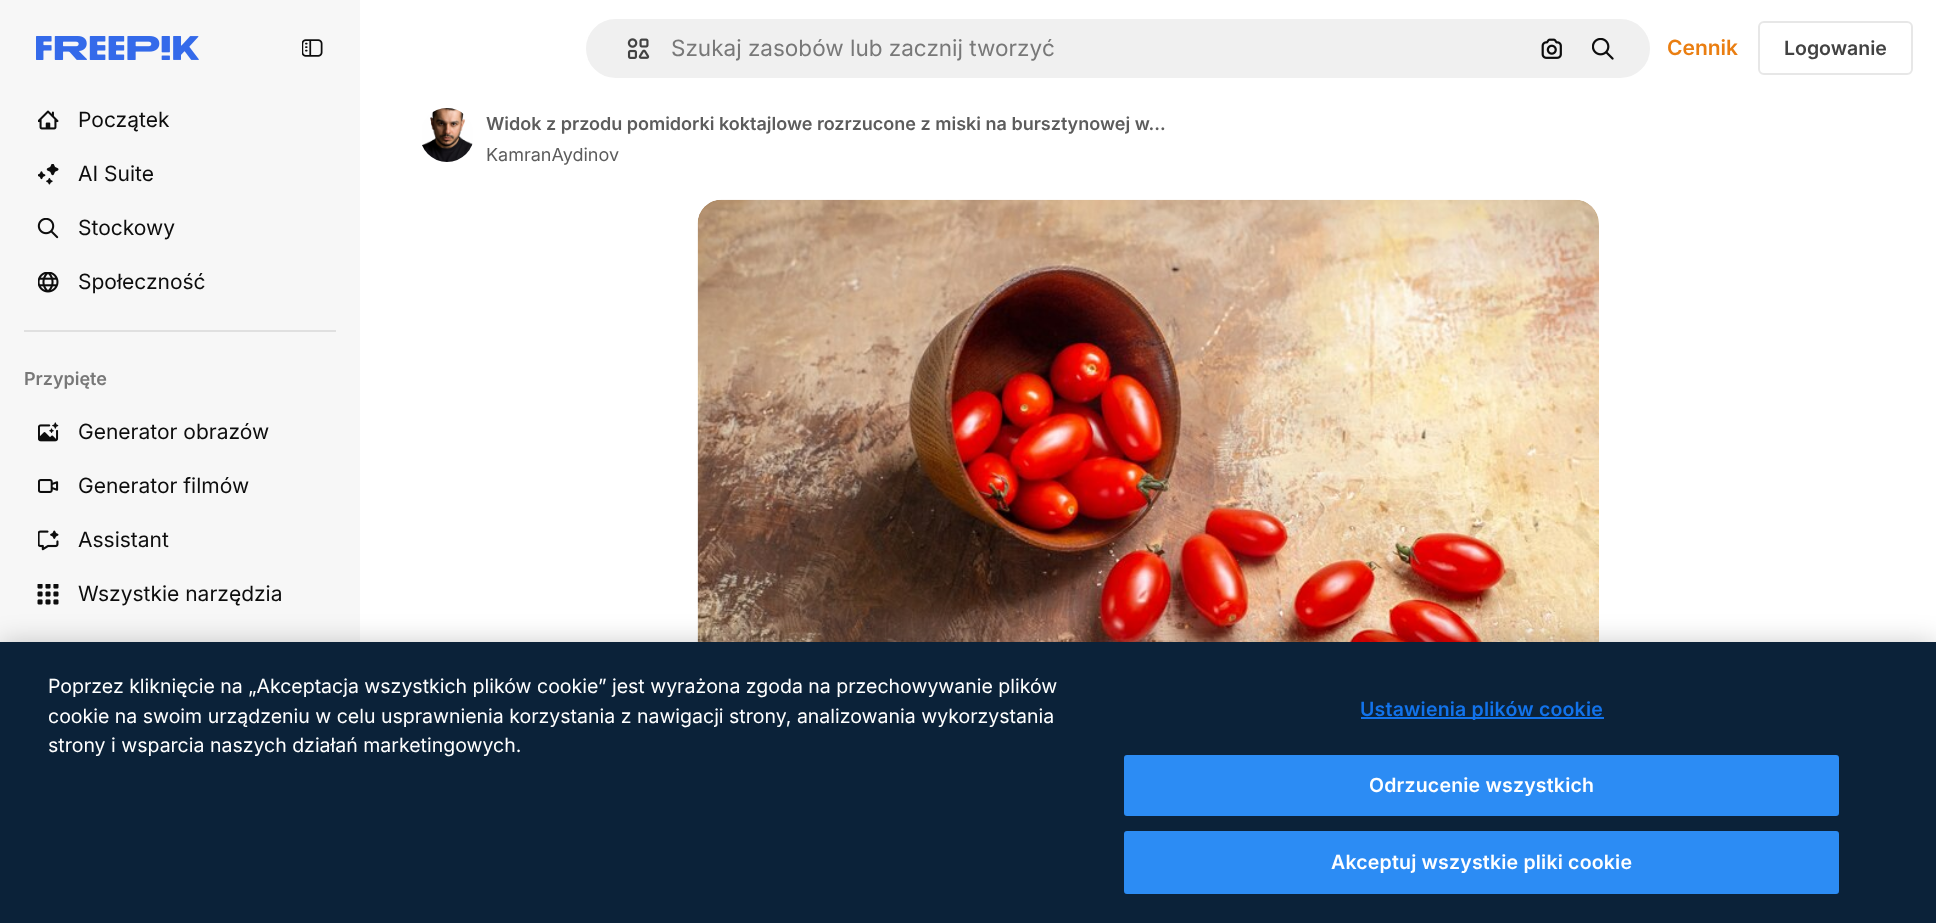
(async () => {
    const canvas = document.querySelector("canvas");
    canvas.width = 1936;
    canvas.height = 923;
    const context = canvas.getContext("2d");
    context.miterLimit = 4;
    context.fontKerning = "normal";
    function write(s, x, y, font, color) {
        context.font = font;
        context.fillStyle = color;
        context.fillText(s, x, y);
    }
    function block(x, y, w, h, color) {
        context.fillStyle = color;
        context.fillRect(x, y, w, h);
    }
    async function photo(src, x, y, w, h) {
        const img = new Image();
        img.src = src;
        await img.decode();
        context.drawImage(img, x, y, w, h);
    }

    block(0, 0, 1936, 923, "rgb(255, 255, 255)");
    block(0, 0, 360, 642, "rgb(247, 247, 247)");
    await photo("media/1.png", 36, 36, 163, 24);
    await photo("media/2.png", 302, 39, 21, 18);
    await photo("media/3.png", 38, 110, 21, 20);
    write("Początek", 78, 127, "21px Inter", "rgb(13, 13, 13)");
    await photo("media/4.png", 38, 164, 21, 21);
    write("AI Suite", 78, 181, "21px Inter", "rgb(13, 13, 13)");
    await photo("media/5.png", 37, 218, 22, 21);
    write("Stockowy", 78, 235, "21px Inter", "rgb(13, 13, 13)");
    await photo("media/6.png", 38, 272, 21, 21);
    write("Społeczność", 78, 289, "21px Inter", "rgb(13, 13, 13)");
    block(24, 330, 312, 2, "rgb(224, 224, 224)");
    write("Przypięte", 24, 385, "600 18px Inter", "rgb(120, 120, 120)");
    await photo("media/7.png", 38, 422, 21, 20);
    write("Generator obrazów", 78, 439, "21px Inter", "rgb(13, 13, 13)");
    await photo("media/8.png", 38, 479, 21, 14);
    write("Generator filmów", 78, 493, "21px Inter", "rgb(13, 13, 13)");
    await photo("media/9.png", 38, 530, 21, 21);
    write("Assistant", 78, 547, "21px Inter", "rgb(13, 13, 13)");
    await photo("media/10.png", 37, 584, 22, 21);
    write("Wszystkie narzędzia", 78, 601, "21px Inter", "rgb(13, 13, 13)");
    context.fillStyle = "rgb(240, 240, 240)";
    context.beginPath();
    context.roundRect(585, 18, 1066, 61, 30.5);
    context.fill();
    context.strokeStyle = "rgb(255, 255, 255)";
    context.lineWidth = 2;
    context.stroke();
    await photo("media/11.png", 627, 38, 23, 21);
    write("Szukaj zasobów lub zacznij tworzyć", 671, 56, "22.5px Inter", "rgb(120, 120, 120)");
    await photo("media/12.png", 1541, 38, 21, 21);
    await photo("media/13.png", 1592, 38, 22, 22);
    write("Cennik", 1667, 55, "600 21px Inter", "rgb(234, 126, 17)");
    context.beginPath();
    context.roundRect(1759, 22, 153, 52, 5);
    context.strokeStyle = "rgb(231, 231, 231)";
    context.stroke();
    write("Logowanie", 1784, 55, "600 19.5px Inter", "rgb(66, 66, 66)");
    await photo("media/14.png", 422, 108, 51, 54);
    write("Widok z przodu pomidorki koktajlowe rozrzucone z miski na bursztynowej w…", 486, 130, "600 18px Inter", "rgb(92, 92, 92)");
    write("KamranAydinov", 486, 161, "18px Inter", "rgb(92, 92, 92)");
    await photo("media/15.png", 697, 199, 902, 443);
    context.fillStyle = "rgba(0, 0, 0, 0.2)";
    context.filter = "blur(13.5px)";
    context.beginPath();
    context.rect(0, 642, 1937, 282);
    context.fill();
    context.filter = "none";
    block(0, 642, 1936, 281, "rgb(11, 34, 57)");
    write("Poprzez kliknięcie na „Akceptacja wszystkich plików cookie” jest wyrażona zgoda na przechowywanie plików", 48, 693, "19.5px Inter", "rgb(255, 255, 255)");
    write("cookie na swoim urządzeniu w celu usprawnienia korzystania z nawigacji strony, analizowania wykorzystania", 48, 723, "19.5px Inter", "rgb(255, 255, 255)");
    write("strony i wsparcia naszych działań marketingowych.", 48, 752, "19.5px Inter", "rgb(255, 255, 255)");
    block(1361, 717, 243, 2, "rgb(18, 115, 235)");
    context.letterSpacing = "0.2px";
    write("Ustawienia plików cookie", 1360, 716, "600 19.5px Inter", "rgb(18, 115, 235)");
    context.fillStyle = "rgb(44, 140, 244)";
    context.beginPath();
    context.roundRect(1125, 756, 713, 59, 2);
    context.fill();
    context.strokeStyle = "rgb(44, 140, 244)";
    context.stroke();
    write("Odrzucenie wszystkich", 1369, 792, "600 19.5px Inter", "rgb(255, 255, 255)");
    context.fillStyle = "rgb(44, 140, 244)";
    context.beginPath();
    context.roundRect(1125, 832, 713, 61, 2);
    context.fill();
    context.stroke();
    write("Akceptuj wszystkie pliki cookie", 1331, 869, "600 19.5px Inter", "rgb(255, 255, 255)");
})();
